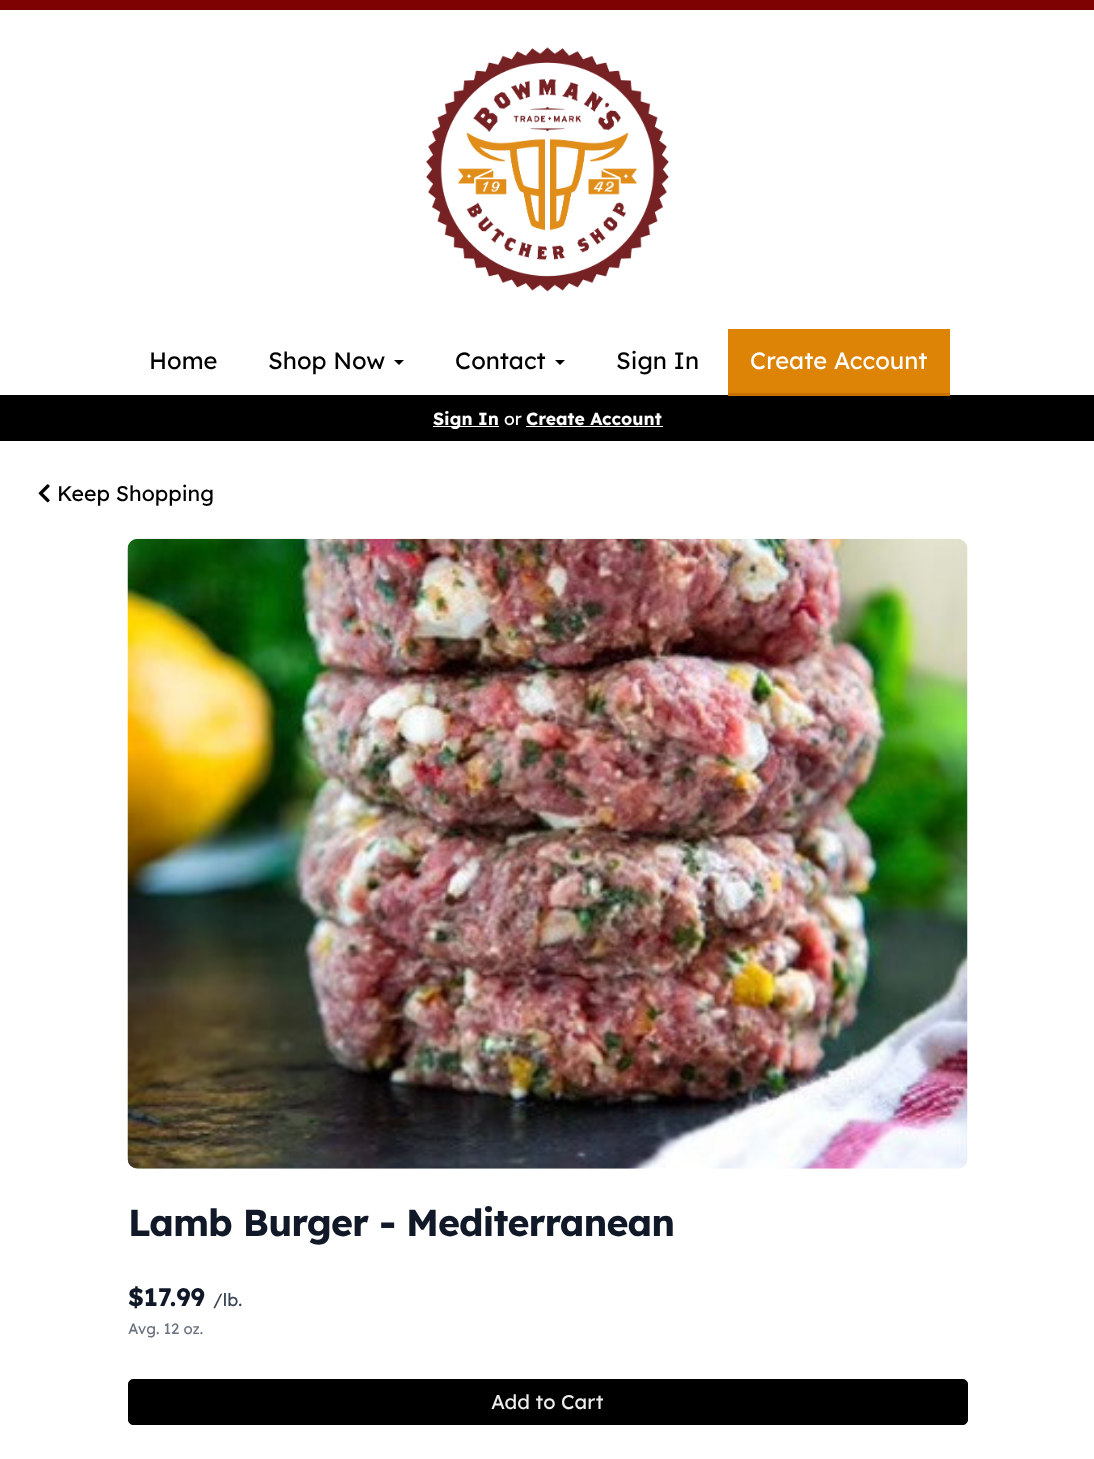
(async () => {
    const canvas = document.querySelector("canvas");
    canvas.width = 1094;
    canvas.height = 1459;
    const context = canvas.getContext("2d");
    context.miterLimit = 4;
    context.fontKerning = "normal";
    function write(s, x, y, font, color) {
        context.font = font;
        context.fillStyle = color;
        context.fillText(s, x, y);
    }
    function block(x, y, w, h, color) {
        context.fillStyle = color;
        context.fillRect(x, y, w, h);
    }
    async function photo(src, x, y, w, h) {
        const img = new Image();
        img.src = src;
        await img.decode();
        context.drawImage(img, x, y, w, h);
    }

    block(0, 0, 1094, 1459, "rgb(255, 255, 255)");
    block(0, 0, 1094, 10, "rgb(126, 2, 2)");
    await photo("media/1.png", 426, 47, 243, 245);
    write("Home", 149, 369, "23.75px Lexend", "rgb(0, 0, 0)");
    write("Shop Now", 268, 369, "23.75px Lexend", "rgb(0, 0, 0)");
    context.beginPath();
    context.moveTo(394, 360);
    context.lineTo(404, 360);
    context.lineTo(399, 365);
    context.closePath();
    context.fill();
    write("Contact", 455, 369, "23.75px Lexend", "rgb(0, 0, 0)");
    context.beginPath();
    context.moveTo(555, 360);
    context.lineTo(565, 360);
    context.lineTo(560, 365);
    context.closePath();
    context.fill();
    write("Sign In", 616, 369, "23.75px Lexend", "rgb(0, 0, 0)");
    block(728, 329, 222, 64, "rgb(221, 132, 7)");
    block(0, 395, 1094, 46, "rgb(0, 0, 0)");
    block(728, 393, 222, 3, "rgb(201, 112, 0)");
    write("Create Account", 750, 369, "23.75px Lexend", "rgb(255, 255, 255)");
    block(433, 426, 66, 1, "rgb(255, 255, 255)");
    write("Sign In", 433, 425, "bold 17.5px Lexend", "rgb(255, 255, 255)");
    write("or", 504, 425, "17.5px Lexend", "rgb(255, 255, 255)");
    write("Create Account", 526, 425, "bold 17.5px Lexend", "rgb(255, 255, 255)");
    block(526, 426, 137, 1, "rgb(255, 255, 255)");
    await photo("media/2.png", 38, 484, 12, 19);
    write("Keep Shopping", 57, 501, "21.25px Lexend", "rgb(0, 0, 0)");
    await photo("media/3.png", 127, 538, 841, 631);
    context.letterSpacing = "-0.95px";
    write("Lamb Burger - Mediterranean", 128, 1236, "bold 37.5px Lexend", "rgb(17, 24, 39)");
    context.letterSpacing = "0px";
    write("$17.99", 128, 1306, "bold 25px Lexend", "rgb(17, 24, 39)");
    write("/lb.", 213, 1306, "17.5px Lexend", "rgb(55, 65, 81)");
    write("Avg. 12 oz.", 128, 1334, "15px Lexend", "rgb(107, 114, 128)");
    context.fillStyle = "rgb(0, 0, 0)";
    context.beginPath();
    context.roundRect(128.5, 1379.5, 839, 45, 4.5);
    context.fill();
    context.strokeStyle = "rgb(0, 0, 0)";
    context.stroke();
    write("Add to Cart", 491, 1409, "20px Lexend", "rgb(238, 238, 238)");
})();
